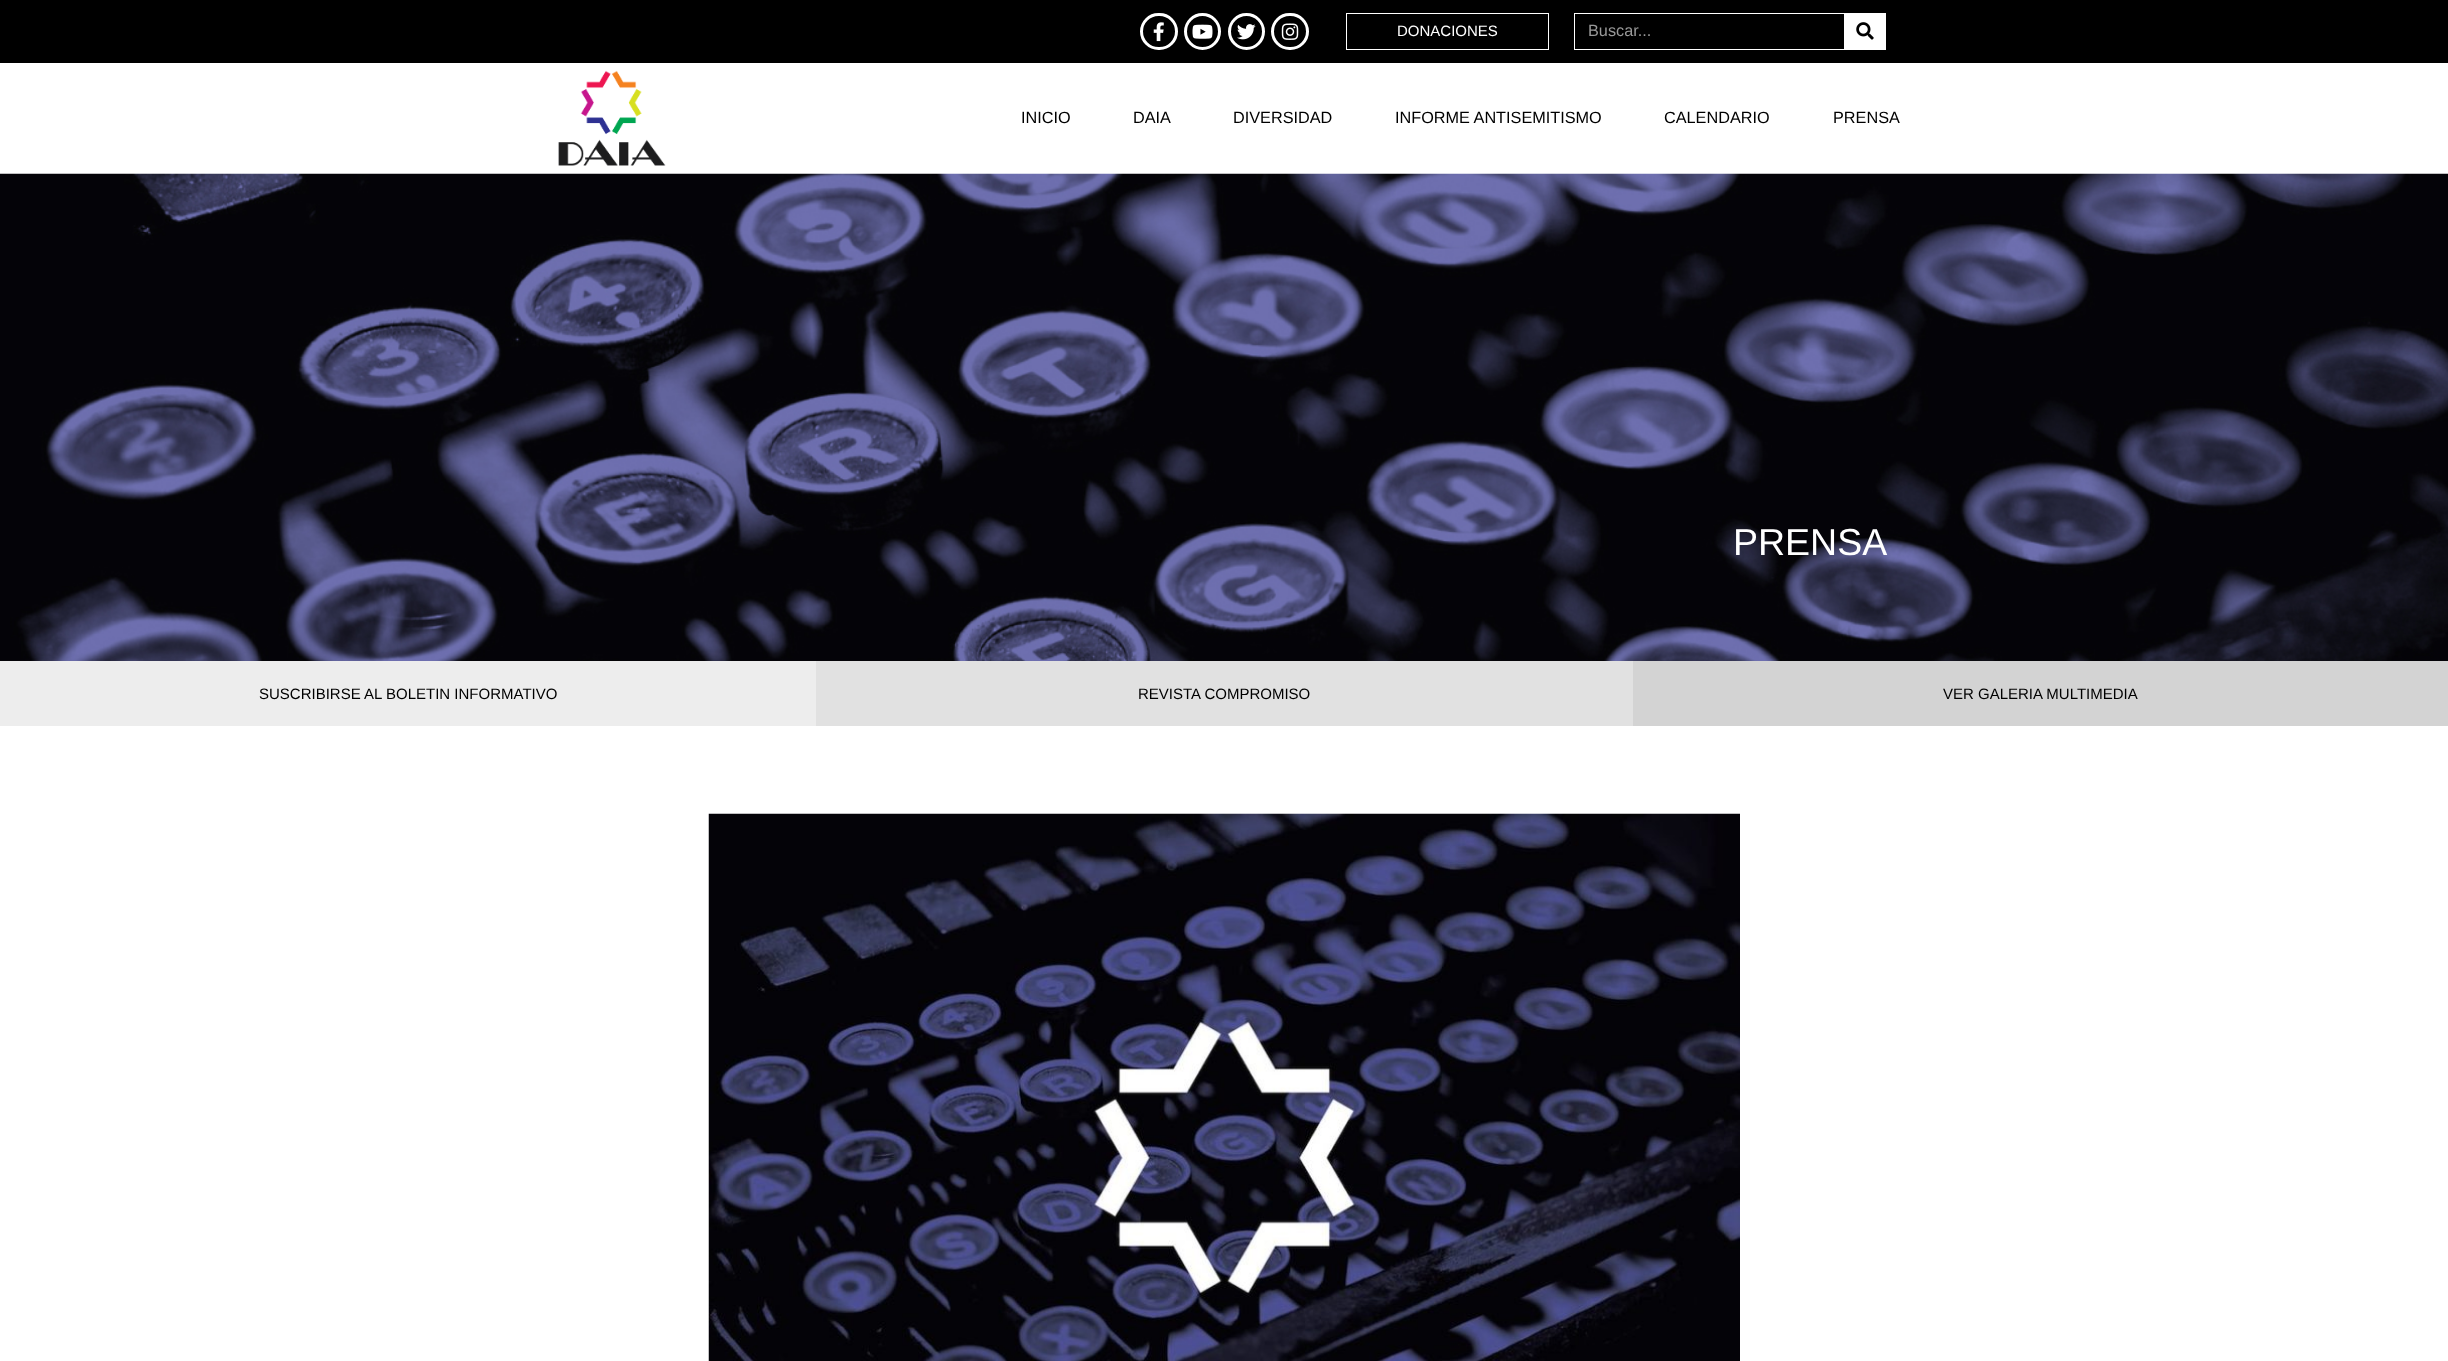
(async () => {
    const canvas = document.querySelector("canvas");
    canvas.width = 2448;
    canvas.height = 1361;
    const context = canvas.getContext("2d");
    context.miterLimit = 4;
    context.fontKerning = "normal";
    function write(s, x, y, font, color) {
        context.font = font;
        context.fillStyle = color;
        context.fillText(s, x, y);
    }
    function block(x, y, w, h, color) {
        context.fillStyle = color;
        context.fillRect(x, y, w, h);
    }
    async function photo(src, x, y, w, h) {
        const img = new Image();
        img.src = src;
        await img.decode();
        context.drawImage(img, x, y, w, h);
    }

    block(0, 0, 2448, 1361, "rgb(0, 0, 0)");
    context.beginPath();
    context.roundRect(1141.5, 14.5, 35, 34, 17);
    context.strokeStyle = "rgb(255, 255, 255)";
    context.lineWidth = 3;
    context.stroke();
    await photo("media/1.png", 1153, 22, 11, 20);
    context.beginPath();
    context.arc(1202.5, 31.5, 17, 0, Math.PI * 2);
    context.stroke();
    await photo("media/2.png", 1192, 24, 21, 15);
    context.beginPath();
    context.arc(1246.5, 31.5, 17, 0, Math.PI * 2);
    context.stroke();
    await photo("media/3.png", 1237, 24, 19, 16);
    context.beginPath();
    context.roundRect(1272.5, 14.5, 35, 34, 17);
    context.stroke();
    await photo("media/4.png", 1281, 23, 18, 17);
    context.lineWidth = 1;
    context.strokeRect(1346.5, 13.5, 202, 36);
    write("DONACIONES", 1397, 36, "15px Liberation Sans", "rgb(255, 255, 255)");
    context.strokeRect(1574.5, 13.5, 311, 36);
    write("Buscar...", 1588, 36, "16.25px Liberation Sans", "rgb(153, 153, 153)");
    block(1844, 14, 41, 35, "rgb(255, 255, 255)");
    await photo("media/5.png", 1856, 22, 18, 18);
    block(0, 63, 2448, 111, "rgb(255, 255, 255)");
    await photo("media/6.png", 558, 70, 108, 96);
    write("INICIO", 1021, 123, "16.25px Liberation Sans", "rgb(0, 0, 0)");
    write("DAIA", 1133, 123, "16.25px Liberation Sans", "rgb(0, 0, 0)");
    write("DIVERSIDAD", 1233, 123, "16.25px Liberation Sans", "rgb(0, 0, 0)");
    write("INFORME ANTISEMITISMO", 1395, 123, "16.25px Liberation Sans", "rgb(0, 0, 0)");
    write("CALENDARIO", 1664, 123, "16.25px Liberation Sans", "rgb(0, 0, 0)");
    write("PRENSA", 1833, 123, "16.25px Liberation Sans", "rgb(0, 0, 0)");
    await photo("media/7.png", 0, 173, 2448, 488);
    write("PRENSA", 1733, 555, "37.5px Liberation Sans", "rgb(255, 255, 255)");
    block(0, 661, 816, 65, "rgb(237, 237, 237)");
    write("SUSCRIBIRSE AL BOLETIN INFORMATIVO", 259, 699, "15px Liberation Sans", "rgb(0, 0, 0)");
    block(816, 661, 817, 65, "rgb(225, 225, 225)");
    write("REVISTA COMPROMISO", 1138, 699, "15px Liberation Sans", "rgb(0, 0, 0)");
    block(1633, 661, 815, 65, "rgb(211, 211, 211)");
    write("VER GALERIA MULTIMEDIA", 1943, 699, "15px Liberation Sans", "rgb(0, 0, 0)");
    block(0, 726, 2448, 635, "rgb(255, 255, 255)");
    await photo("media/8.png", 708, 813, 1032, 548);
})();
